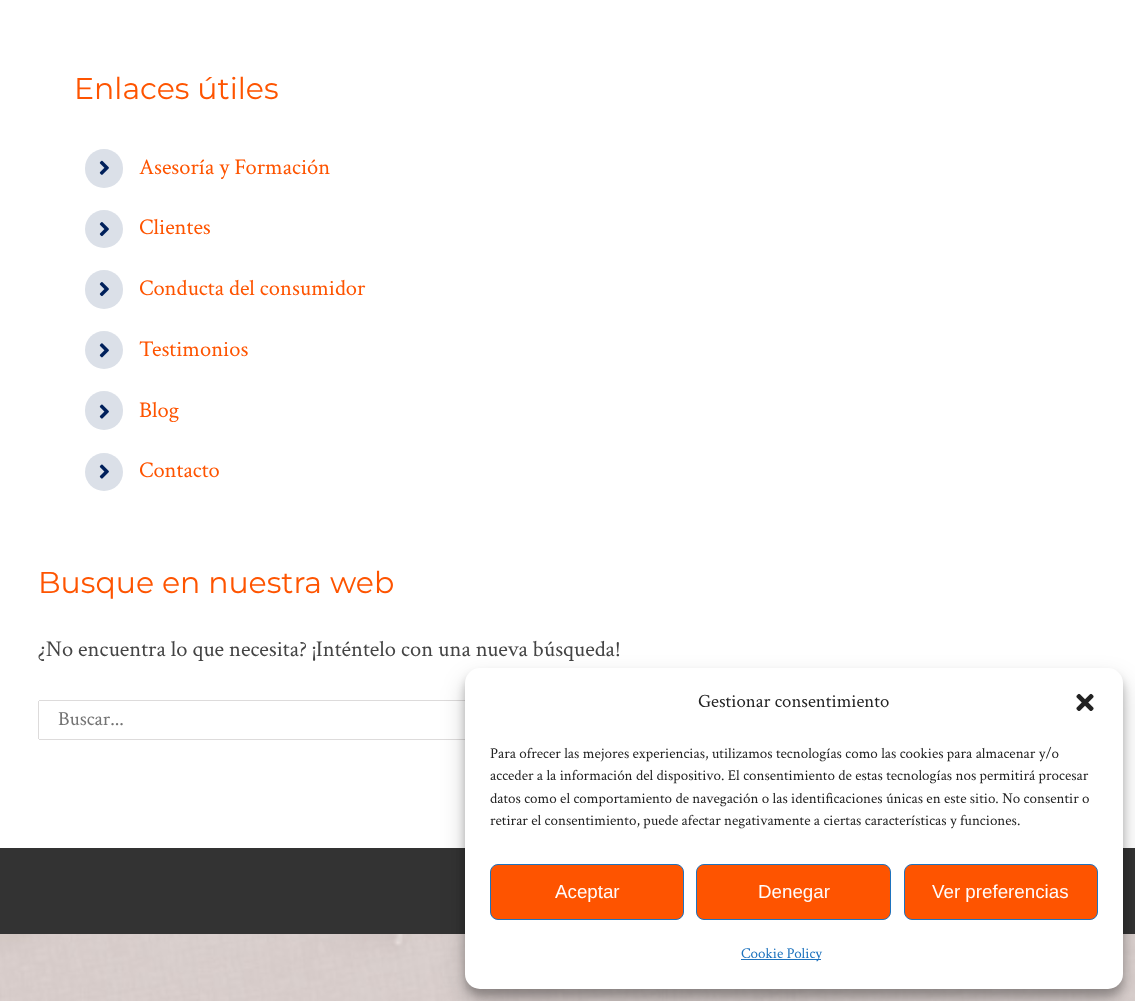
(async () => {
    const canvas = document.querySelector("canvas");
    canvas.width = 1135;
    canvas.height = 1001;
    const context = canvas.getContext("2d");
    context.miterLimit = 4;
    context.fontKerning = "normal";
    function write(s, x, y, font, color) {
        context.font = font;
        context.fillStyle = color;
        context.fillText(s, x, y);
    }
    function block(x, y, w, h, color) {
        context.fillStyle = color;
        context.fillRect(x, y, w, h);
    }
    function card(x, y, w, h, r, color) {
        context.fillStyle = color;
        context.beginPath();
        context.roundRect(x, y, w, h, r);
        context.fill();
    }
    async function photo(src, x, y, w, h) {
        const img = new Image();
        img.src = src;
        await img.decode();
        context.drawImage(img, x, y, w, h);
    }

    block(0, 0, 1135, 1001, "rgb(255, 255, 255)");
    await photo("media/1.png", 0, 934, 1135, 67);
    write("Enlaces útiles", 74, 99, "30px Montserrat", "rgb(254, 84, 0)");
    card(85, 149, 38, 39, 19, "rgb(219, 224, 232)");
    await photo("media/2.png", 99, 160, 10, 15);
    write("Asesoría y Formación", 139, 174, "22.5px Crimson Text", "rgb(254, 84, 0)");
    context.fillStyle = "rgb(219, 224, 232)";
    context.beginPath();
    context.arc(104, 229, 19, 0, Math.PI * 2);
    context.fill();
    await photo("media/3.png", 99, 222, 10, 15);
    write("Clientes", 139, 234, "22.5px Crimson Text", "rgb(254, 84, 0)");
    card(85, 270, 38, 39, 19, "rgb(219, 224, 232)");
    await photo("media/3.png", 99, 282, 10, 15);
    write("Conducta del consumidor", 139, 295, "22.5px Crimson Text", "rgb(254, 84, 0)");
    context.fillStyle = "rgb(219, 224, 232)";
    context.beginPath();
    context.arc(104, 350, 19, 0, Math.PI * 2);
    context.fill();
    await photo("media/4.png", 99, 343, 10, 15);
    write("Testimonios", 139, 356, "22.5px Crimson Text", "rgb(254, 84, 0)");
    card(85, 391, 38, 39, 19, "rgb(219, 224, 232)");
    await photo("media/5.png", 99, 404, 10, 15);
    write("Blog", 139, 417, "22.5px Crimson Text", "rgb(254, 84, 0)");
    context.fillStyle = "rgb(219, 224, 232)";
    context.beginPath();
    context.arc(104, 472, 19, 0, Math.PI * 2);
    context.fill();
    await photo("media/5.png", 99, 464, 10, 15);
    write("Contacto", 139, 477, "22.5px Crimson Text", "rgb(254, 84, 0)");
    write("Busque en nuestra web", 38, 593, "30px Montserrat", "rgb(254, 84, 0)");
    write("¿No encuentra lo que necesita? ¡Inténtelo con una nueva búsqueda!", 38, 656, "22.5px Crimson Text", "rgb(68, 68, 68)");
    block(39, 700, 426, 1, "rgb(221, 219, 219)");
    block(39, 739, 426, 1, "rgb(221, 219, 219)");
    block(38, 701, 1, 38, "rgb(221, 219, 219)");
    write("Buscar...", 58, 725, "20px Crimson Text", "rgb(116, 116, 116)");
    block(0, 848, 1135, 86, "rgb(51, 51, 51)");
    context.fillStyle = "rgba(0, 0, 0, 0.23)";
    context.filter = "blur(4px)";
    context.beginPath();
    context.roundRect(465, 675, 658, 321, 15);
    context.fill();
    context.filter = "none";
    context.fillStyle = "rgba(0, 0, 0, 0.19)";
    context.filter = "blur(12.5px)";
    context.beginPath();
    context.roundRect(465, 680, 658, 321, 15);
    context.fill();
    context.filter = "none";
    card(465, 668, 658, 321, 15, "rgb(255, 255, 255)");
    write("Gestionar consentimiento", 698, 707, "18.75px Crimson Text", "rgb(34, 34, 34)");
    await photo("media/6.png", 1076, 693, 18, 18);
    write("Para ofrecer las mejores experiencias, utilizamos tecnologías como las cookies para almacenar y/o", 490, 758, "15px Crimson Text", "rgb(34, 34, 34)");
    write("acceder a la información del dispositivo. El consentimiento de estas tecnologías nos permitirá procesar", 490, 780, "15px Crimson Text", "rgb(34, 34, 34)");
    write("datos como el comportamiento de navegación o las identificaciones únicas en este sitio. No consentir o", 490, 803, "15px Crimson Text", "rgb(34, 34, 34)");
    write("retirar el consentimiento, puede afectar negativamente a ciertas características y funciones.", 490, 825, "15px Crimson Text", "rgb(34, 34, 34)");
    context.fillStyle = "rgb(254, 84, 0)";
    context.beginPath();
    context.roundRect(490.5, 864.5, 193, 55, 7.5);
    context.fill();
    context.strokeStyle = "rgb(30, 115, 190)";
    context.stroke();
    write("Aceptar", 555, 898, "18.75px Liberation Sans", "rgb(255, 252, 252)");
    context.fillStyle = "rgb(254, 84, 0)";
    context.beginPath();
    context.roundRect(696.5, 864.5, 194, 55, 7.5);
    context.fill();
    context.stroke();
    write("Denegar", 758, 898, "18.75px Liberation Sans", "rgb(255, 252, 252)");
    context.fillStyle = "rgb(254, 84, 0)";
    context.beginPath();
    context.roundRect(904.5, 864.5, 193, 55, 7.5);
    context.fill();
    context.stroke();
    write("Ver preferencias", 932, 898, "18.75px Liberation Sans", "rgb(255, 252, 252)");
    block(741, 959, 80, 1, "rgb(30, 115, 190)");
    write("Cookie Policy", 741, 958, "15px Crimson Text", "rgb(30, 115, 190)");
})();
